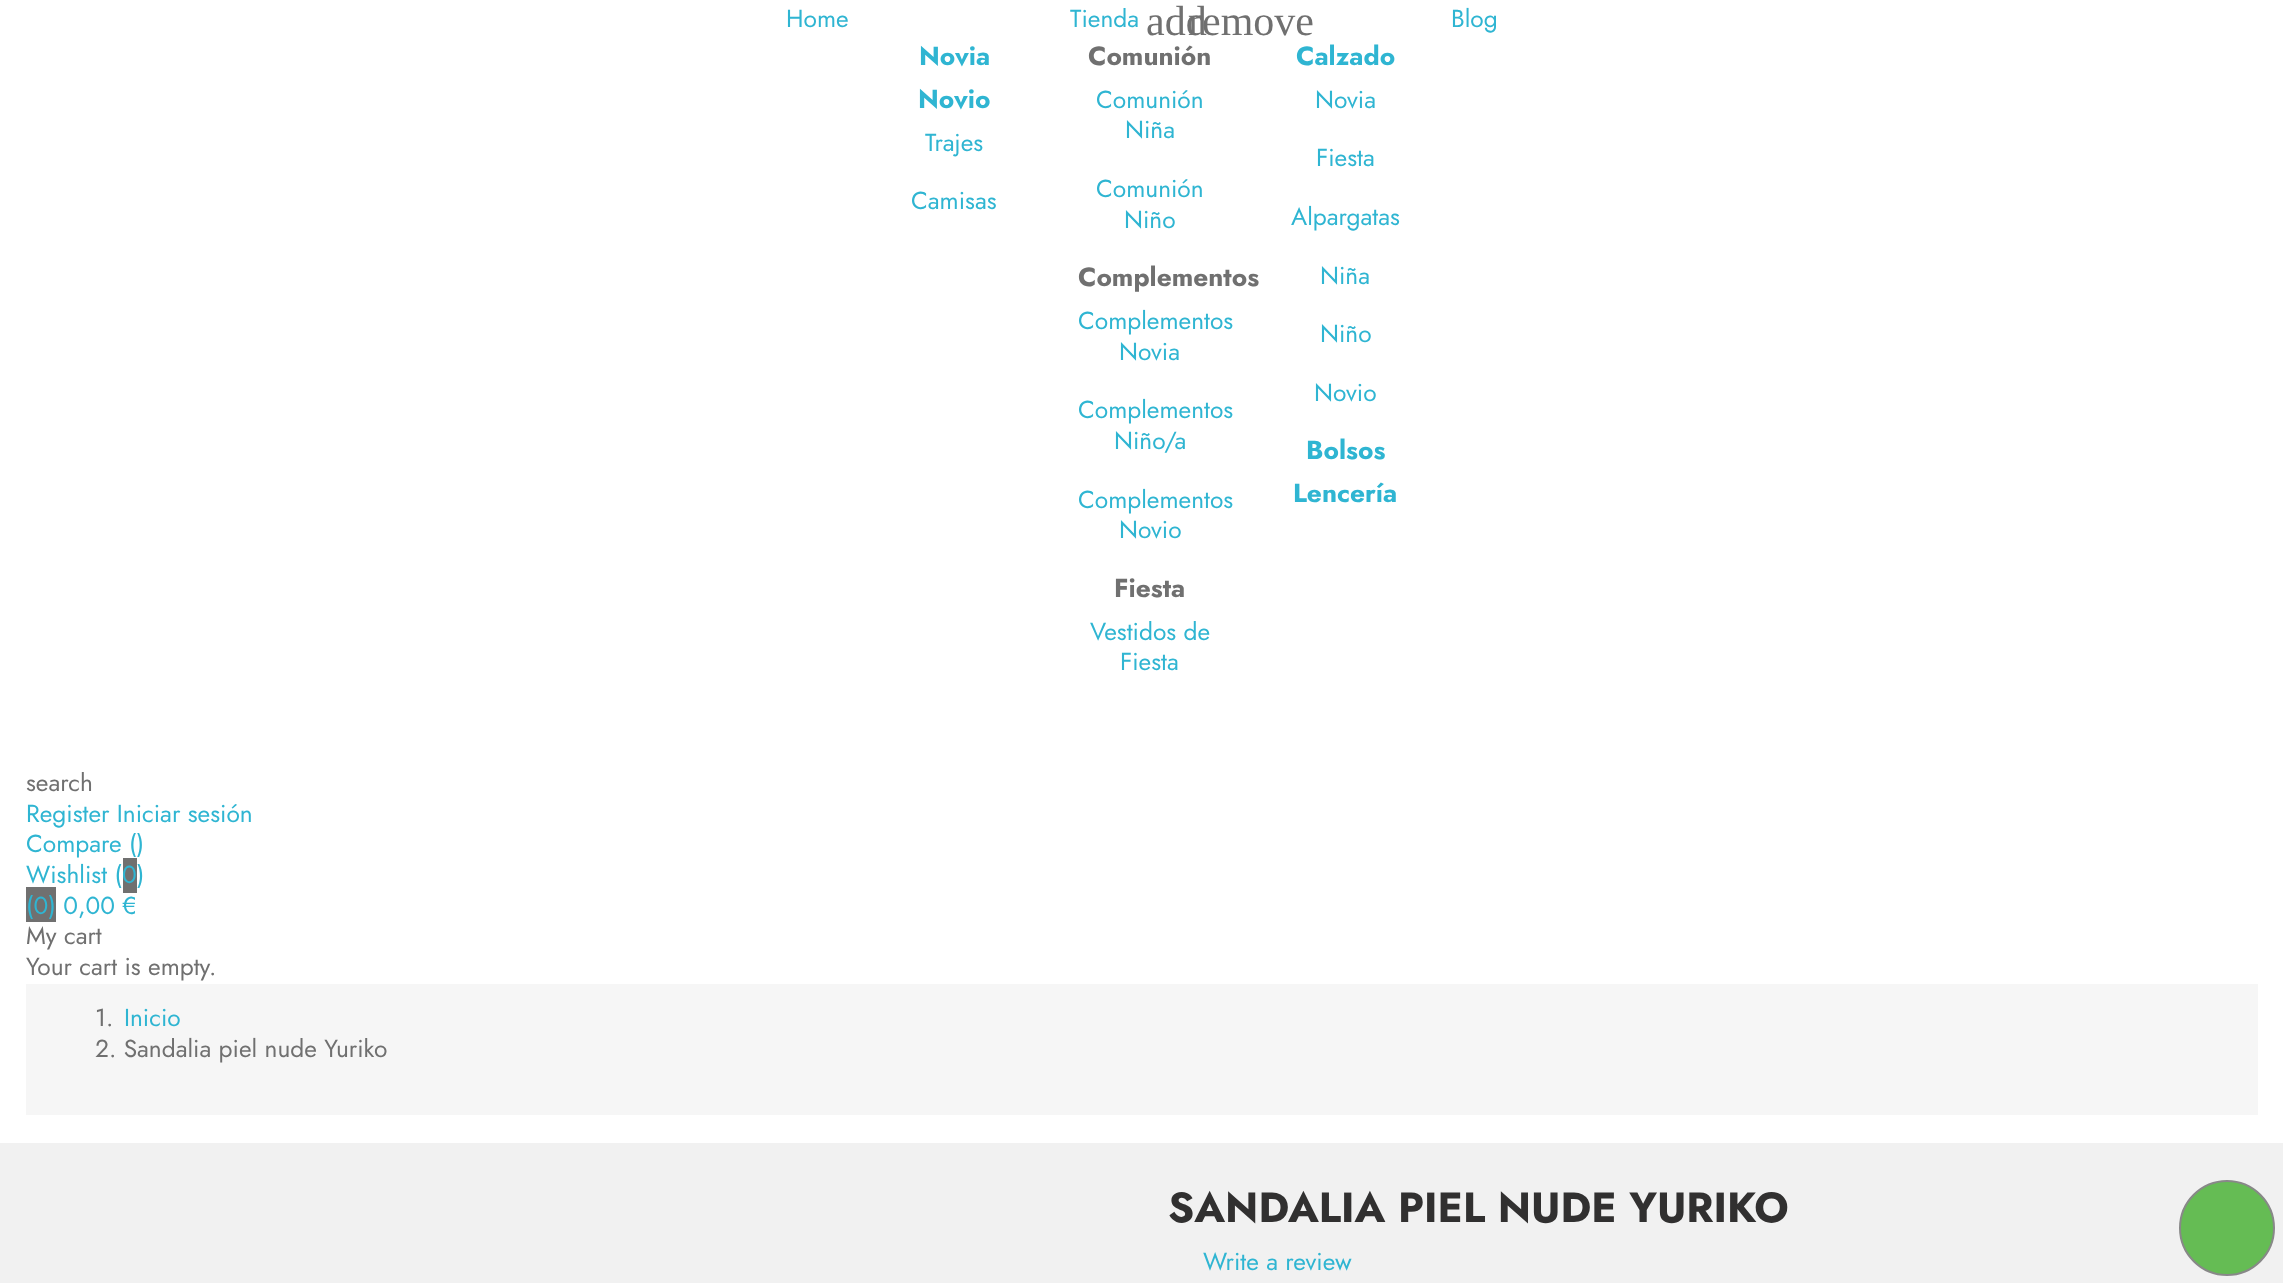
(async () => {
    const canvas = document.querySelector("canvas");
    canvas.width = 2283;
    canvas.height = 1283;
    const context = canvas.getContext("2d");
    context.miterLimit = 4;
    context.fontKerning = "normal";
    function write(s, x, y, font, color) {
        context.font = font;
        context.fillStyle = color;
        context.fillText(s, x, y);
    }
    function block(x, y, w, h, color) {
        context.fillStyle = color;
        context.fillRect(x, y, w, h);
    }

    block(0, 0, 2283, 1283, "rgb(255, 255, 255)");
    write("Home", 786, 27, "24.5px Jost", "rgb(47, 181, 210)");
    write("Tienda", 1070, 27, "24.5px Jost", "rgb(47, 181, 210)");
    write("add", 1146, 35, "42px Liberation Serif", "rgb(112, 112, 112)");
    write("remove", 1188, 35, "42px Liberation Serif", "rgb(112, 112, 112)");
    write("Novia", 919, 65, "bold 26.25px Jost", "rgb(47, 181, 210)");
    write("Novio", 918, 108, "bold 26.25px Jost", "rgb(47, 181, 210)");
    write("Trajes", 925, 151, "24.5px Jost", "rgb(47, 181, 210)");
    write("Camisas", 911, 209, "24.5px Jost", "rgb(47, 181, 210)");
    write("Comunión", 1088, 65, "bold 26.25px Jost", "rgb(112, 112, 112)");
    write("Comunión", 1096, 108, "24.5px Jost", "rgb(47, 181, 210)");
    write("Niña", 1125, 138, "24.5px Jost", "rgb(47, 181, 210)");
    write("Comunión", 1096, 197, "24.5px Jost", "rgb(47, 181, 210)");
    write("Niño", 1124, 228, "24.5px Jost", "rgb(47, 181, 210)");
    write("Complementos", 1078, 286, "bold 26.25px Jost", "rgb(112, 112, 112)");
    write("Complementos", 1078, 329, "24.5px Jost", "rgb(47, 181, 210)");
    write("Novia", 1119, 360, "24.5px Jost", "rgb(47, 181, 210)");
    write("Complementos", 1078, 418, "24.5px Jost", "rgb(47, 181, 210)");
    write("Niño/a", 1114, 449, "24.5px Jost", "rgb(47, 181, 210)");
    write("Complementos", 1078, 508, "24.5px Jost", "rgb(47, 181, 210)");
    write("Novio", 1119, 538, "24.5px Jost", "rgb(47, 181, 210)");
    write("Fiesta", 1114, 597, "bold 26.25px Jost", "rgb(112, 112, 112)");
    write("Vestidos de", 1090, 640, "24.5px Jost", "rgb(47, 181, 210)");
    write("Fiesta", 1120, 670, "24.5px Jost", "rgb(47, 181, 210)");
    write("Calzado", 1296, 65, "bold 26.25px Jost", "rgb(47, 181, 210)");
    write("Novia", 1315, 108, "24.5px Jost", "rgb(47, 181, 210)");
    write("Fiesta", 1316, 166, "24.5px Jost", "rgb(47, 181, 210)");
    write("Alpargatas", 1291, 225, "24.5px Jost", "rgb(47, 181, 210)");
    write("Niña", 1320, 284, "24.5px Jost", "rgb(47, 181, 210)");
    write("Niño", 1320, 342, "24.5px Jost", "rgb(47, 181, 210)");
    write("Novio", 1314, 401, "24.5px Jost", "rgb(47, 181, 210)");
    write("Bolsos", 1306, 459, "bold 26.25px Jost", "rgb(47, 181, 210)");
    write("Lencería", 1293, 502, "bold 26.25px Jost", "rgb(47, 181, 210)");
    write("Blog", 1451, 27, "24.5px Jost", "rgb(47, 181, 210)");
    write("search", 26, 791, "24.5px Jost", "rgb(112, 112, 112)");
    write("Register Iniciar sesión", 26, 822, "24.5px Jost", "rgb(47, 181, 210)");
    write("Compare ()", 26, 852, "24.5px Jost", "rgb(47, 181, 210)");
    write("Wishlist (", 26, 883, "24.5px Jost", "rgb(47, 181, 210)");
    block(123, 858, 14, 35, "rgb(112, 112, 112)");
    write("0)", 122, 883, "24.5px Jost", "rgb(47, 181, 210)");
    block(26, 887, 30, 35, "rgb(112, 112, 112)");
    write("(0) 0,00 €", 26, 914, "24.5px Jost", "rgb(47, 181, 210)");
    write("My cart", 26, 944, "24.5px Jost", "rgb(112, 112, 112)");
    write("Your cart is empty.", 26, 975, "24.5px Jost", "rgb(112, 112, 112)");
    block(26, 984, 2232, 131, "rgb(246, 246, 246)");
    write("1.", 95, 1026, "24.5px Jost", "rgb(112, 112, 112)");
    write("Inicio", 124, 1026, "24.5px Jost", "rgb(47, 181, 210)");
    write("2. Sandalia piel nude Yuriko", 95, 1057, "24.5px Jost", "rgb(112, 112, 112)");
    block(0, 1143, 2283, 140, "rgb(241, 241, 241)");
    write("SANDALIA PIEL NUDE YURIKO", 1168, 1222, "bold 42px Jost", "rgb(49, 48, 48)");
    write("Write a review", 1203, 1270, "24.5px Jost", "rgb(47, 181, 210)");
    context.fillStyle = "rgb(101, 188, 84)";
    context.beginPath();
    context.arc(2227, 1228, 47, 0, Math.PI * 2);
    context.fill();
    context.strokeStyle = "rgb(136, 136, 136)";
    context.lineWidth = 2;
    context.stroke();
})();
